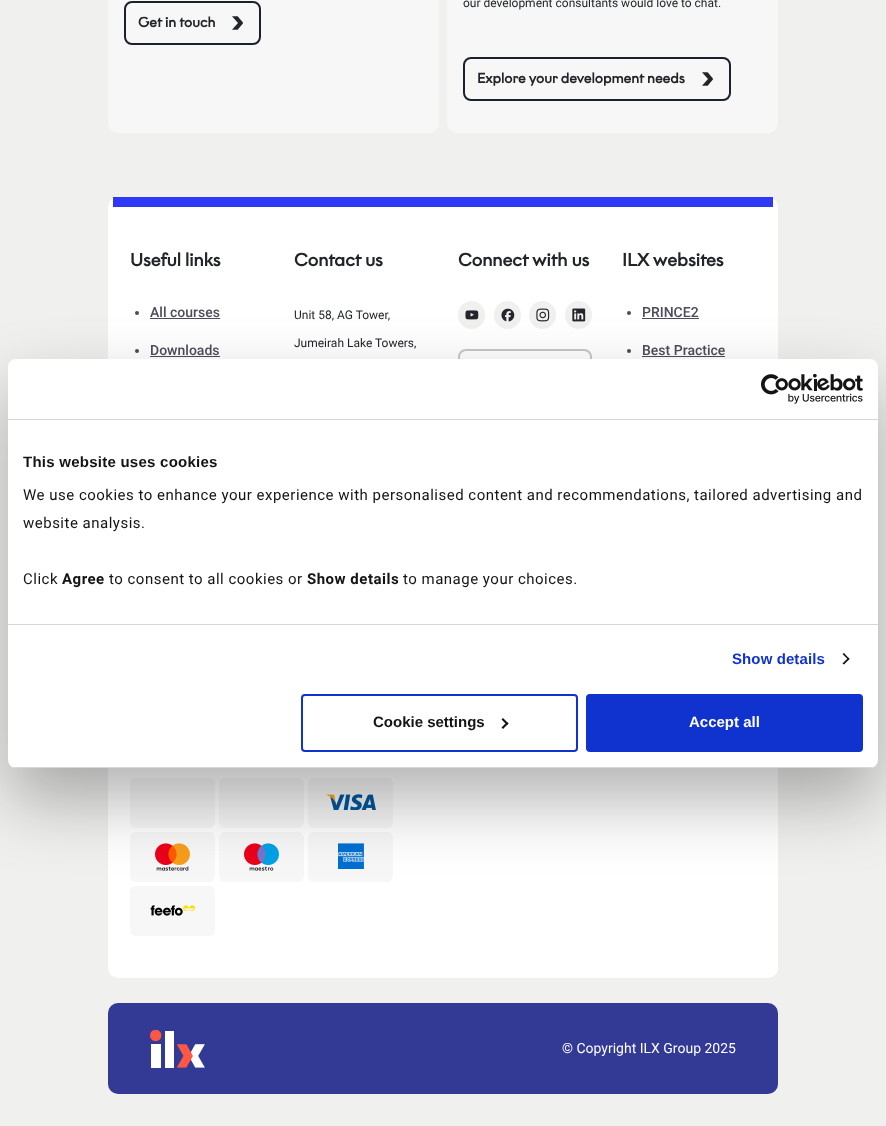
(async () => {
    const canvas = document.querySelector("canvas");
    canvas.width = 886;
    canvas.height = 1126;
    const context = canvas.getContext("2d");
    context.miterLimit = 4;
    context.fontKerning = "normal";
    function write(s, x, y, font, color) {
        context.font = font;
        context.fillStyle = color;
        context.fillText(s, x, y);
    }
    function block(x, y, w, h, color) {
        context.fillStyle = color;
        context.fillRect(x, y, w, h);
    }
    function card(x, y, w, h, r, color) {
        context.fillStyle = color;
        context.beginPath();
        context.roundRect(x, y, w, h, r);
        context.fill();
    }
    async function photo(src, x, y, w, h) {
        const img = new Image();
        img.src = src;
        await img.decode();
        context.drawImage(img, x, y, w, h);
    }

    block(0, 0, 886, 1126, "rgb(240, 240, 239)");
    card(108, -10, 331, 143, 10, "rgb(247, 247, 247)");
    context.beginPath();
    context.roundRect(125, 2, 135, 42, 7);
    context.strokeStyle = "rgb(26, 32, 44)";
    context.lineWidth = 2;
    context.stroke();
    write("Get in touch", 138, 27, "bold 14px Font", "rgb(33, 37, 41)");
    await photo("media/1.png", 232, 16, 11, 14);
    card(447, -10, 331, 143, 10, "rgb(247, 247, 247)");
    write("our development consultants would love to chat.", 463, 7, "12px Roboto", "rgb(33, 37, 41)");
    context.beginPath();
    context.roundRect(464, 58, 266, 42, 7);
    context.stroke();
    write("Explore your development needs", 477, 83, "bold 14px Font", "rgb(33, 37, 41)");
    await photo("media/1.png", 702, 72, 11, 14);
    card(108, 197, 670, 781, 10, "rgb(255, 255, 255)");
    block(113, 197, 660, 10, "rgb(47, 56, 244)");
    write("Useful links", 130, 266, "bold 18px Font", "rgb(33, 37, 41)");
    context.fillStyle = "rgb(77, 76, 90)";
    context.beginPath();
    context.arc(137, 313, 2, 0, Math.PI * 2);
    context.fill();
    write("All courses", 150, 317, "500 14px Roboto", "rgb(77, 76, 90)");
    block(150, 318, 70, 1, "rgb(77, 76, 90)");
    context.beginPath();
    context.arc(137, 351, 2, 0, Math.PI * 2);
    context.fill();
    write("Downloads", 150, 355, "500 14px Roboto", "rgb(77, 76, 90)");
    block(150, 356, 70, 1, "rgb(77, 76, 90)");
    write("Contact us", 294, 266, "bold 18px Font", "rgb(33, 37, 41)");
    write("Unit 58, AG Tower,", 294, 319, "12px Roboto", "rgb(33, 37, 41)");
    write("Jumeirah Lake Towers,", 294, 347, "12px Roboto", "rgb(33, 37, 41)");
    write("Connect with us", 458, 266, "bold 18px Font", "rgb(33, 37, 41)");
    await photo("media/2.png", 458, 301, 27, 28);
    await photo("media/3.png", 494, 301, 27, 28);
    await photo("media/4.png", 529, 301, 27, 28);
    await photo("media/5.png", 565, 301, 27, 28);
    context.beginPath();
    context.roundRect(459, 350, 132, 122, 7);
    context.strokeStyle = "rgb(200, 200, 198)";
    context.stroke();
    write("ILX websites", 622, 266, "bold 18px Font", "rgb(33, 37, 41)");
    context.fillStyle = "rgb(77, 76, 90)";
    context.beginPath();
    context.arc(629, 313, 2, 0, Math.PI * 2);
    context.fill();
    write("PRINCE2", 642, 317, "500 14px Roboto", "rgb(77, 76, 90)");
    block(642, 318, 57, 1, "rgb(77, 76, 90)");
    context.beginPath();
    context.arc(629, 351, 2, 0, Math.PI * 2);
    context.fill();
    write("Best Practice", 642, 355, "500 14px Roboto", "rgb(77, 76, 90)");
    block(642, 356, 83, 1, "rgb(77, 76, 90)");
    card(130, 778, 85, 50, 6, "rgb(247, 247, 247)");
    card(219, 778, 85, 50, 6, "rgb(247, 247, 247)");
    card(308, 778, 85, 50, 6, "rgb(247, 247, 247)");
    await photo("media/6.png", 326, 794, 50, 16);
    card(130, 832, 85, 50, 6, "rgb(247, 247, 247)");
    await photo("media/7.png", 155, 843, 35, 28);
    card(219, 832, 85, 50, 6, "rgb(247, 247, 247)");
    await photo("media/8.png", 244, 843, 35, 28);
    card(308, 832, 85, 50, 6, "rgb(247, 247, 247)");
    await photo("media/9.png", 338, 843, 26, 26);
    card(130, 886, 85, 50, 6, "rgb(247, 247, 247)");
    await photo("media/10.png", 150, 905, 45, 11);
    card(108, 1003, 670, 91, 10, "rgb(50, 58, 150)");
    await photo("media/11.png", 150, 1029, 55, 39);
    write("© Copyright ILX Group 2025", 562, 1053, "14px Roboto", "rgb(255, 255, 255)");
    context.fillStyle = "rgba(0, 0, 0, 0.3)";
    context.filter = "blur(34px)";
    context.beginPath();
    context.roundRect(8, 391, 870, 409, 8);
    context.fill();
    context.filter = "none";
    card(8, 359, 870, 409, 8, "rgb(255, 255, 255)");
    block(8, 419, 870, 1, "rgb(214, 214, 214)");
    await photo("media/12.png", 761, 374, 102, 30);
    block(8, 624, 870, 1, "rgb(214, 214, 214)");
    context.letterSpacing = "0.25px";
    write("This website uses cookies", 23, 467, "bold 15px Liberation Sans", "rgb(20, 20, 20)");
    context.letterSpacing = "0.5px";
    write("We use cookies to enhance your experience with personalised content and recommendations, tailored advertising and", 23, 500, "15px Roboto", "rgb(20, 20, 20)");
    write("website analysis.", 23, 528, "15px Roboto", "rgb(20, 20, 20)");
    write("Click", 23, 584, "15px Roboto", "rgb(20, 20, 20)");
    write("Agree", 62, 584, "bold 15px Roboto", "rgb(20, 20, 20)");
    write("to consent to all cookies or", 109, 584, "15px Roboto", "rgb(20, 20, 20)");
    write("Show details", 307, 584, "bold 15px Roboto", "rgb(20, 20, 20)");
    write("to manage your choices.", 403, 584, "15px Roboto", "rgb(20, 20, 20)");
    context.letterSpacing = "0.1px";
    write("Show details", 732, 664, "bold 15px Liberation Sans", "rgb(16, 50, 207)");
    context.fillStyle = "rgb(20, 20, 20)";
    context.beginPath();
    context.moveTo(844, 653);
    context.lineTo(849.5, 659);
    context.lineTo(848.5, 660);
    context.lineTo(842.5, 654);
    context.closePath();
    context.fill();
    context.beginPath();
    context.moveTo(848.5, 657.5);
    context.lineTo(849.5, 659);
    context.lineTo(844, 664.5);
    context.lineTo(842.5, 663.5);
    context.closePath();
    context.fill();
    context.save();
    context.beginPath();
    context.roundRect(8, 359, 870, 409, 8);
    context.clip();
    block(8, 767, 870, 1, "rgb(214, 214, 214)");
    context.restore();
    context.beginPath();
    context.roundRect(302, 695, 275, 56, 3);
    context.strokeStyle = "rgb(16, 50, 207)";
    context.stroke();
    context.letterSpacing = "0px";
    write("Cookie settings", 373, 727, "bold 15px Liberation Sans", "rgb(20, 20, 20)");
    context.beginPath();
    context.moveTo(503, 718);
    context.lineTo(508.5, 723.5);
    context.lineTo(507, 725);
    context.lineTo(501.5, 719.5);
    context.closePath();
    context.fill();
    context.beginPath();
    context.moveTo(507, 722);
    context.lineTo(508.5, 723.5);
    context.lineTo(503, 729);
    context.lineTo(501.5, 727.5);
    context.closePath();
    context.fill();
    context.fillStyle = "rgb(16, 50, 207)";
    context.beginPath();
    context.roundRect(587, 695, 275, 56, 3);
    context.fill();
    context.stroke();
    write("Accept all", 689, 727, "bold 15px Liberation Sans", "rgb(255, 255, 255)");
})();
